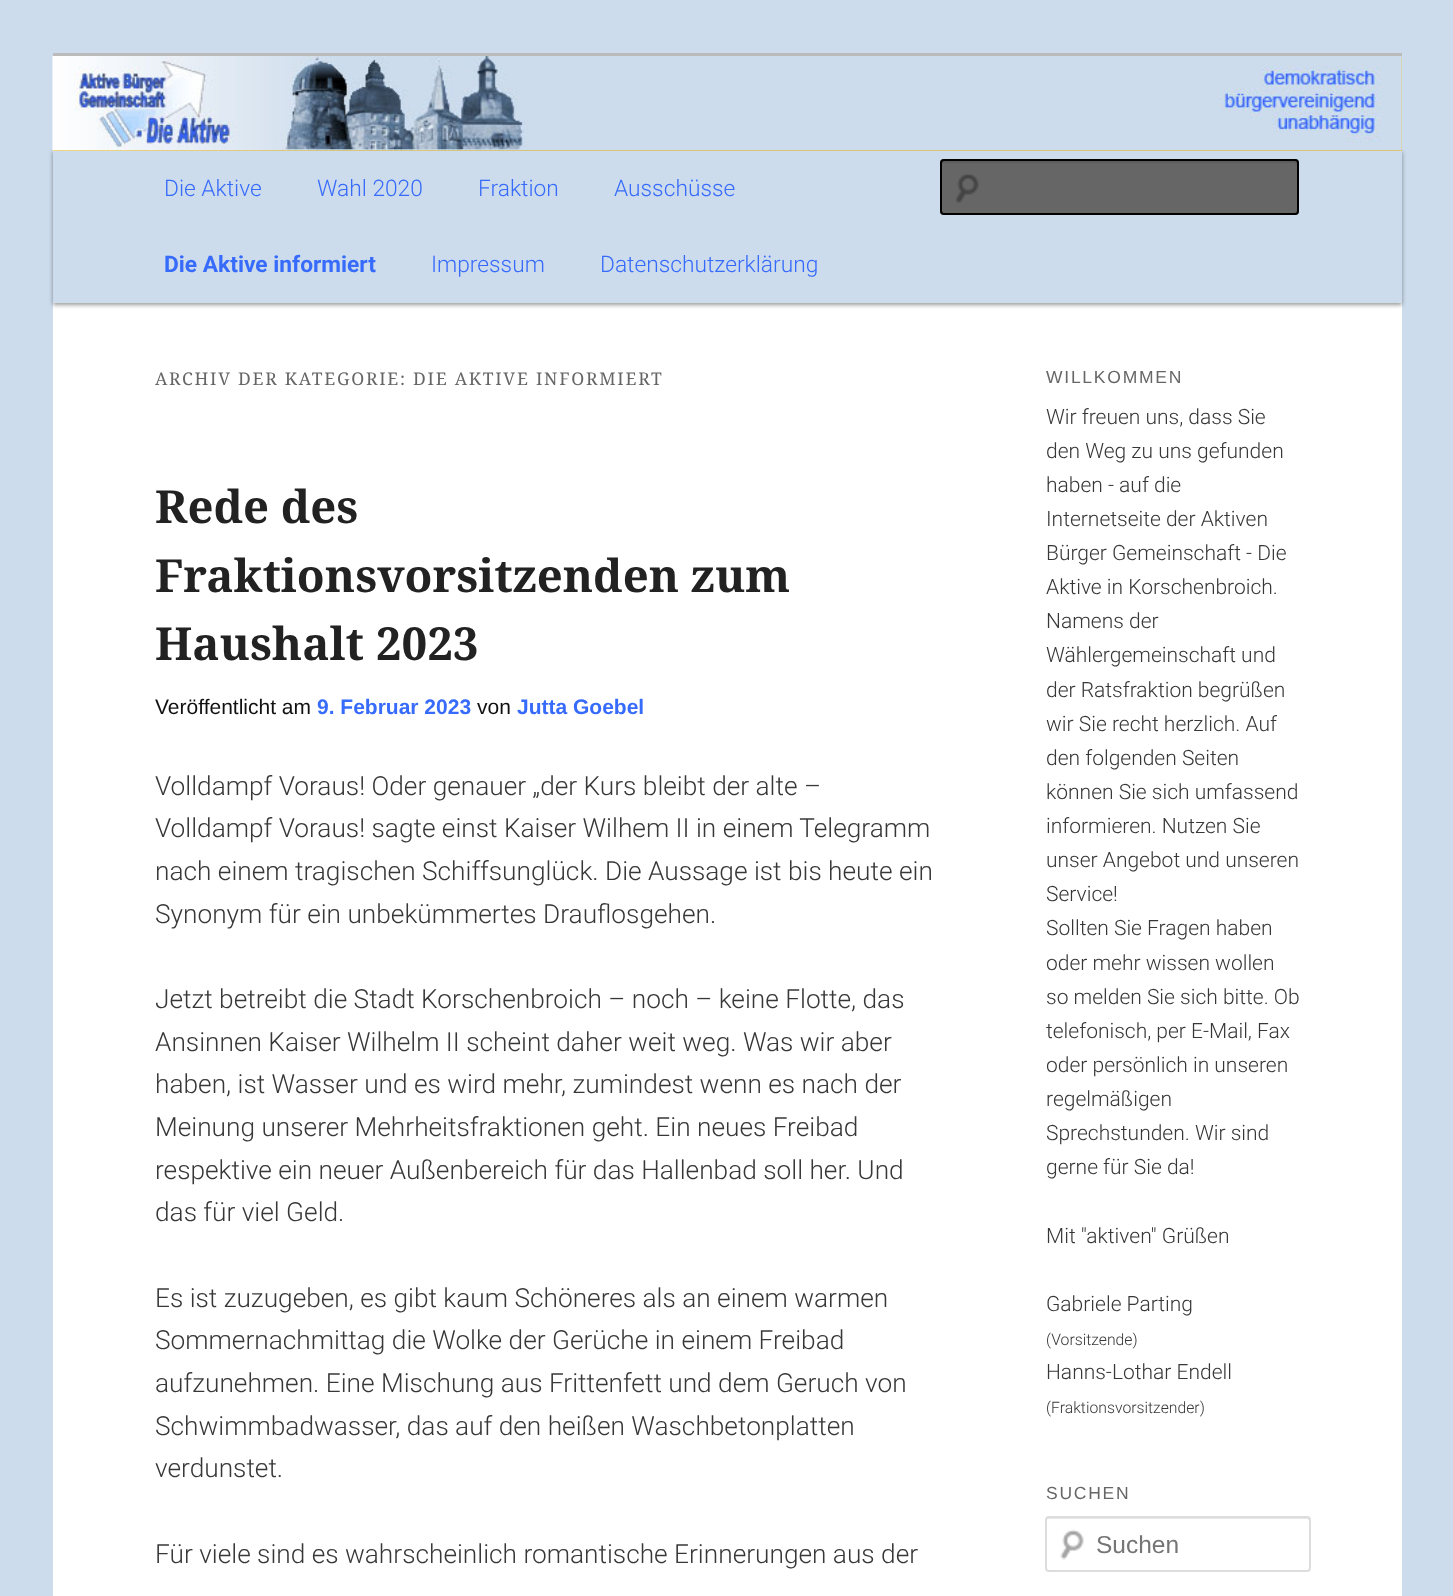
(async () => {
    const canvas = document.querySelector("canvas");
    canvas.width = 1453;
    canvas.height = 1596;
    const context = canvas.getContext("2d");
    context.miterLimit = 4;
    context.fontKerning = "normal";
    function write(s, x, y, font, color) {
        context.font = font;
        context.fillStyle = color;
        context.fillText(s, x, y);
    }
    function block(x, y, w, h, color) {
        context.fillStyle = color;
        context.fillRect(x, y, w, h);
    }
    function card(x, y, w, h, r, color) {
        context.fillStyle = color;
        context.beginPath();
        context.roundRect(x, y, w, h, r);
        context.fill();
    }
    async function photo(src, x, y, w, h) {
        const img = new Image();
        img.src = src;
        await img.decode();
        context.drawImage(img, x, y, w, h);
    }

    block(0, 0, 1453, 1596, "rgb(205, 220, 236)");
    block(53, 303, 1349, 1293, "rgb(255, 255, 255)");
    block(53, 57, 1349, 94, "rgb(255, 193, 0)");
    block(53, 53, 1349, 4, "rgb(187, 187, 187)");
    context.fillStyle = "rgba(0, 0, 0, 0.4)";
    context.filter = "blur(2px)";
    context.beginPath();
    context.rect(53, 152, 1349, 153);
    context.fill();
    context.filter = "none";
    await photo("media/1.png", 52, 56, 1350, 95);
    block(53, 151, 1349, 152, "rgb(205, 220, 236)");
    write("Die Aktive", 164, 196, "300 22.75px Roboto", "rgb(55, 107, 251)");
    write("Wahl 2020", 317, 196, "300 22.75px Roboto", "rgb(55, 107, 251)");
    write("Fraktion", 478, 196, "300 22.75px Roboto", "rgb(55, 107, 251)");
    write("Ausschüsse", 614, 196, "300 22.75px Roboto", "rgb(55, 107, 251)");
    write("Die Aktive informiert", 164, 272, "bold 22.75px Roboto", "rgb(55, 107, 251)");
    write("Impressum", 431, 272, "300 22.75px Roboto", "rgb(55, 107, 251)");
    write("Datenschutzerklärung", 600, 272, "300 22.75px Roboto", "rgb(55, 107, 251)");
    card(940, 159, 359, 56, 4, "rgb(102, 102, 102)");
    await photo("media/2.png", 955, 174, 24, 29);
    context.fillStyle = "rgb(92, 92, 92)";
    context.beginPath();
    context.moveTo(943, 163);
    context.lineTo(1295, 163);
    context.bezierCurveTo(1296, 163, 1297, 164, 1297, 164);
    context.bezierCurveTo(1297, 163, 1297, 161, 1295, 161);
    context.lineTo(944, 161);
    context.bezierCurveTo(942, 161, 942, 163, 942, 164);
    context.closePath();
    context.fill();
    context.beginPath();
    context.roundRect(941, 160, 357, 54, 3);
    context.strokeStyle = "rgb(0, 0, 0)";
    context.lineWidth = 2;
    context.stroke();
    context.letterSpacing = "1.75px";
    write("ARCHIV DER KATEGORIE: DIE AKTIVE INFORMIERT", 155, 385, "17.5px Noto Serif", "rgb(102, 102, 102)");
    context.letterSpacing = "0px";
    write("Rede des", 155, 523, "bold 45.5px Noto Serif", "rgb(34, 34, 34)");
    write("Fraktionsvorsitzenden zum", 155, 592, "bold 45.5px Noto Serif", "rgb(34, 34, 34)");
    write("Haushalt 2023", 155, 660, "bold 45.5px Noto Serif", "rgb(34, 34, 34)");
    write("Veröffentlicht am", 155, 714, "21px Liberation Sans", "rgb(17, 17, 17)");
    write("9. Februar 2023", 317, 714, "bold 21px Liberation Sans", "rgb(55, 107, 251)");
    write("von", 477, 714, "21px Liberation Sans", "rgb(17, 17, 17)");
    write("Jutta Goebel", 517, 714, "bold 21px Liberation Sans", "rgb(55, 107, 251)");
    write("Volldampf Voraus! Oder genauer „der Kurs bleibt der alte –", 155, 795, "300 26.25px Roboto", "rgb(55, 55, 55)");
    write("Volldampf Voraus! sagte einst Kaiser Wilhem II in einem Telegramm", 155, 837, "300 26.25px Roboto", "rgb(55, 55, 55)");
    write("nach einem tragischen Schiffsunglück. Die Aussage ist bis heute ein", 155, 880, "300 26.25px Roboto", "rgb(55, 55, 55)");
    write("Synonym für ein unbekümmertes Drauflosgehen.", 155, 923, "300 26.25px Roboto", "rgb(55, 55, 55)");
    write("Jetzt betreibt die Stadt Korschenbroich – noch – keine Flotte, das", 155, 1008, "300 26.25px Roboto", "rgb(55, 55, 55)");
    write("Ansinnen Kaiser Wilhelm II scheint daher weit weg. Was wir aber", 155, 1051, "300 26.25px Roboto", "rgb(55, 55, 55)");
    write("haben, ist Wasser und es wird mehr, zumindest wenn es nach der", 155, 1093, "300 26.25px Roboto", "rgb(55, 55, 55)");
    write("Meinung unserer Mehrheitsfraktionen geht. Ein neues Freibad", 155, 1136, "300 26.25px Roboto", "rgb(55, 55, 55)");
    write("respektive ein neuer Außenbereich für das Hallenbad soll her. Und", 155, 1179, "300 26.25px Roboto", "rgb(55, 55, 55)");
    write("das für viel Geld.", 155, 1221, "300 26.25px Roboto", "rgb(55, 55, 55)");
    write("Es ist zuzugeben, es gibt kaum Schöneres als an einem warmen", 155, 1307, "300 26.25px Roboto", "rgb(55, 55, 55)");
    write("Sommernachmittag die Wolke der Gerüche in einem Freibad", 155, 1349, "300 26.25px Roboto", "rgb(55, 55, 55)");
    write("aufzunehmen. Eine Mischung aus Frittenfett und dem Geruch von", 155, 1392, "300 26.25px Roboto", "rgb(55, 55, 55)");
    write("Schwimmbadwasser, das auf den heißen Waschbetonplatten", 155, 1435, "300 26.25px Roboto", "rgb(55, 55, 55)");
    write("verdunstet.", 155, 1477, "300 26.25px Roboto", "rgb(55, 55, 55)");
    write("Für viele sind es wahrscheinlich romantische Erinnerungen aus der", 155, 1563, "300 26.25px Roboto", "rgb(55, 55, 55)");
    context.letterSpacing = "1.75px";
    write("WILLKOMMEN", 1046, 383, "17.5px Liberation Sans", "rgb(102, 102, 102)");
    context.letterSpacing = "0px";
    write("Wir freuen uns, dass Sie", 1046, 424, "300 21px Roboto", "rgb(55, 55, 55)");
    write("den Weg zu uns gefunden", 1046, 458, "300 21px Roboto", "rgb(55, 55, 55)");
    write("haben - auf die", 1046, 492, "300 21px Roboto", "rgb(55, 55, 55)");
    write("Internetseite der Aktiven", 1046, 526, "300 21px Roboto", "rgb(55, 55, 55)");
    write("Bürger Gemeinschaft - Die", 1046, 560, "300 21px Roboto", "rgb(55, 55, 55)");
    write("Aktive in Korschenbroich.", 1046, 594, "300 21px Roboto", "rgb(55, 55, 55)");
    write("Namens der", 1046, 628, "300 21px Roboto", "rgb(55, 55, 55)");
    write("Wählergemeinschaft und", 1046, 662, "300 21px Roboto", "rgb(55, 55, 55)");
    write("der Ratsfraktion begrüßen", 1046, 697, "300 21px Roboto", "rgb(55, 55, 55)");
    write("wir Sie recht herzlich. Auf", 1046, 731, "300 21px Roboto", "rgb(55, 55, 55)");
    write("den folgenden Seiten", 1046, 765, "300 21px Roboto", "rgb(55, 55, 55)");
    write("können Sie sich umfassend", 1046, 799, "300 21px Roboto", "rgb(55, 55, 55)");
    write("informieren. Nutzen Sie", 1046, 833, "300 21px Roboto", "rgb(55, 55, 55)");
    write("unser Angebot und unseren", 1046, 867, "300 21px Roboto", "rgb(55, 55, 55)");
    write("Service!", 1046, 901, "300 21px Roboto", "rgb(55, 55, 55)");
    write("Sollten Sie Fragen haben", 1046, 935, "300 21px Roboto", "rgb(55, 55, 55)");
    write("oder mehr wissen wollen", 1046, 970, "300 21px Roboto", "rgb(55, 55, 55)");
    write("so melden Sie sich bitte. Ob", 1046, 1004, "300 21px Roboto", "rgb(55, 55, 55)");
    write("telefonisch, per E-Mail, Fax", 1046, 1038, "300 21px Roboto", "rgb(55, 55, 55)");
    write("oder persönlich in unseren", 1046, 1072, "300 21px Roboto", "rgb(55, 55, 55)");
    write("regelmäßigen", 1046, 1106, "300 21px Roboto", "rgb(55, 55, 55)");
    write("Sprechstunden. Wir sind", 1046, 1140, "300 21px Roboto", "rgb(55, 55, 55)");
    write("gerne für Sie da!", 1046, 1174, "300 21px Roboto", "rgb(55, 55, 55)");
    write("Mit \"aktiven\" Grüßen", 1046, 1243, "300 21px Roboto", "rgb(55, 55, 55)");
    write("Gabriele Parting", 1046, 1311, "300 21px Roboto", "rgb(55, 55, 55)");
    write("(Vorsitzende)", 1046, 1345, "300 15.75px Roboto", "rgb(55, 55, 55)");
    write("Hanns-Lothar Endell", 1046, 1379, "300 21px Roboto", "rgb(55, 55, 55)");
    write("(Fraktionsvorsitzender)", 1046, 1413, "300 15.75px Roboto", "rgb(55, 55, 55)");
    context.letterSpacing = "1.75px";
    write("SUCHEN", 1046, 1499, "17.5px Liberation Sans", "rgb(102, 102, 102)");
    await photo("media/3.png", 1060, 1529, 24, 31);
    context.fillStyle = "rgb(230, 230, 230)";
    context.beginPath();
    context.moveTo(1048, 1519);
    context.lineTo(1307, 1519);
    context.bezierCurveTo(1308, 1519, 1309, 1520, 1309, 1521);
    context.lineTo(1309, 1519);
    context.bezierCurveTo(1309, 1518, 1308, 1517, 1307, 1517);
    context.lineTo(1049, 1517);
    context.bezierCurveTo(1048, 1517, 1047, 1518, 1047, 1519);
    context.closePath();
    context.fill();
    context.beginPath();
    context.roundRect(1046, 1517, 264, 54, 3);
    context.strokeStyle = "rgb(221, 221, 221)";
    context.stroke();
    context.letterSpacing = "0px";
    write("Suchen", 1096, 1553, "24.5px Liberation Sans", "rgb(117, 117, 117)");
})();
